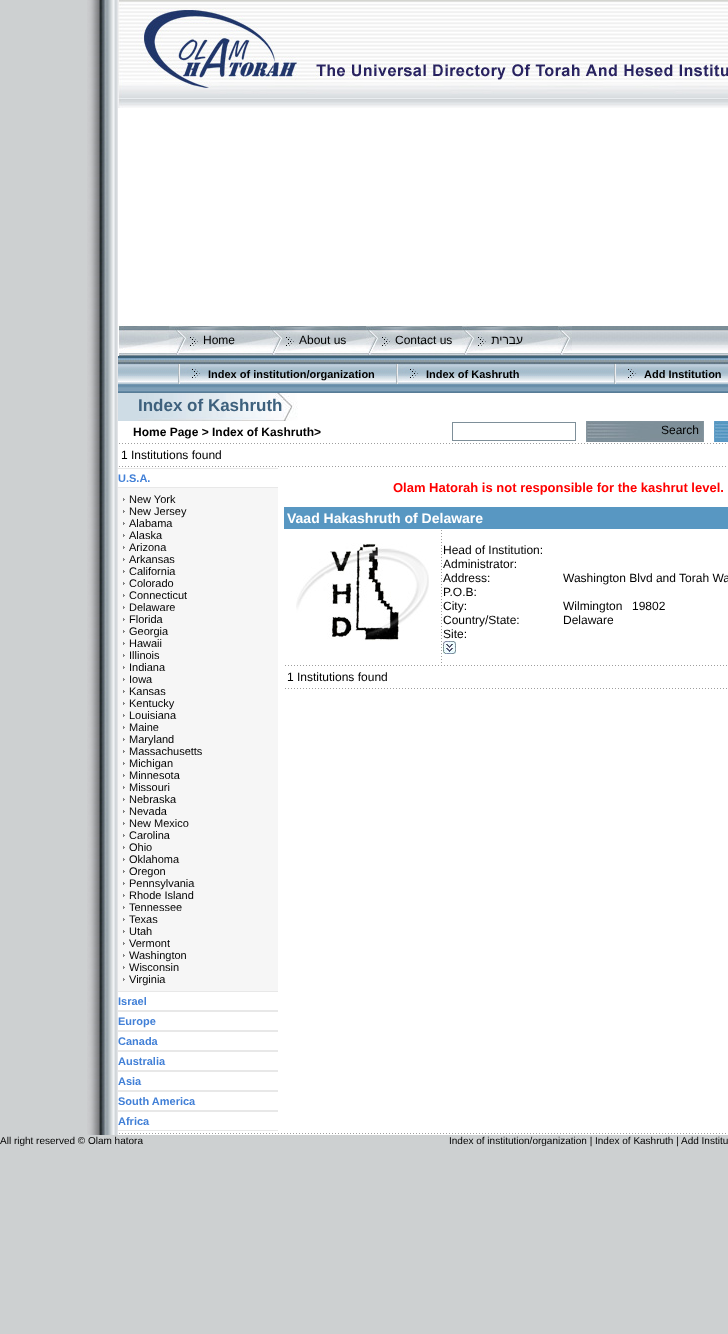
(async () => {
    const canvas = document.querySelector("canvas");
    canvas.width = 728;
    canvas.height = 1334;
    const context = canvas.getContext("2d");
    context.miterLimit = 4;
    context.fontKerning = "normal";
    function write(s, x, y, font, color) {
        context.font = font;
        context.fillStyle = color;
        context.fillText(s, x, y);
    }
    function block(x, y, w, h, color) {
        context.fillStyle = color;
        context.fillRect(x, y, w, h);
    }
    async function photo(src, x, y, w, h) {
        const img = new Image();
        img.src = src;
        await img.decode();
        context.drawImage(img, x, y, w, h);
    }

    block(0, 0, 728, 1334, "rgb(205, 208, 209)");
    await photo("media/1.png", 87, 0, 31, 1135);
    block(118, 108, 610, 1027, "rgb(255, 255, 255)");
    await photo("media/2.png", 118, 0, 610, 108);
    await photo("media/3.png", 188, 326, 540, 30);
    block(118, 356, 610, 2, "rgb(62, 98, 120)");
    await photo("media/4.png", 118, 324, 56, 32);
    await photo("media/5.png", 174, 324, 14, 32);
    await photo("media/6.png", 188, 326, 82, 29);
    write("Home", 203, 344, "12px Liberation Sans", "rgb(0, 0, 0)");
    await photo("media/5.png", 270, 324, 14, 32);
    await photo("media/6.png", 284, 326, 82, 29);
    write("About us", 299, 344, "12px Liberation Sans", "rgb(0, 0, 0)");
    await photo("media/5.png", 366, 324, 14, 32);
    await photo("media/6.png", 380, 326, 82, 29);
    write("Contact us", 395, 344, "12px Liberation Sans", "rgb(0, 0, 0)");
    await photo("media/5.png", 462, 324, 14, 32);
    await photo("media/6.png", 476, 326, 82, 29);
    context.direction = "rtl";
    write("עברית", 523, 344, "12px Liberation Sans", "rgb(0, 0, 0)");
    await photo("media/5.png", 558, 324, 14, 32);
    await photo("media/7.png", 118, 358, 610, 6);
    await photo("media/8.png", 118, 364, 610, 20);
    await photo("media/9.png", 178, 364, 24, 20);
    context.direction = "ltr";
    write("Index of institution/organization", 208, 378, "bold 11px Liberation Sans", "rgb(0, 0, 0)");
    await photo("media/9.png", 396, 364, 24, 20);
    write("Index of Kashruth", 426, 378, "bold 11px Liberation Sans", "rgb(0, 0, 0)");
    await photo("media/9.png", 614, 364, 24, 20);
    write("Add Institution", 644, 378, "bold 11px Liberation Sans", "rgb(0, 0, 0)");
    await photo("media/10.png", 118, 384, 610, 9);
    block(118, 393, 20, 28, "rgb(206, 220, 229)");
    await photo("media/11.png", 138, 393, 160, 28);
    write("Index of Kashruth", 138, 411, "bold 17px Liberation Sans", "rgb(62, 97, 125)");
    write("Home Page > Index of Kashruth>", 133, 436, "bold 12px Liberation Sans", "rgb(0, 0, 0)");
    context.strokeStyle = "rgb(126, 143, 153)";
    context.strokeRect(452.5, 422.5, 123, 18);
    await photo("media/12.png", 586, 421, 118, 21);
    write("Search", 661, 434, "12px Liberation Sans", "rgb(0, 0, 0)");
    await photo("media/13.png", 714, 421, 14, 21);
    await photo("media/14.png", 119, 443, 607, 1);
    write("1 Institutions found", 121, 459, "12px Liberation Sans", "rgb(0, 0, 0)");
    await photo("media/14.png", 119, 466, 607, 1);
    block(118, 468, 160, 1, "rgb(232, 232, 232)");
    block(118, 487, 160, 1, "rgb(232, 232, 232)");
    write("U.S.A.", 118, 482, "bold 11px Liberation Sans", "rgb(66, 128, 215)");
    block(118, 488, 160, 503, "rgb(246, 246, 246)");
    await photo("media/15.png", 123, 498, 2, 3);
    write("New York", 129, 503, "11px Liberation Sans", "rgb(0, 0, 0)");
    await photo("media/15.png", 123, 510, 2, 3);
    write("New Jersey", 129, 515, "11px Liberation Sans", "rgb(0, 0, 0)");
    await photo("media/15.png", 123, 522, 2, 3);
    write("Alabama", 129, 527, "11px Liberation Sans", "rgb(0, 0, 0)");
    await photo("media/15.png", 123, 534, 2, 3);
    write("Alaska", 129, 539, "11px Liberation Sans", "rgb(0, 0, 0)");
    await photo("media/15.png", 123, 546, 2, 3);
    write("Arizona", 129, 551, "11px Liberation Sans", "rgb(0, 0, 0)");
    await photo("media/15.png", 123, 558, 2, 3);
    write("Arkansas", 129, 563, "11px Liberation Sans", "rgb(0, 0, 0)");
    await photo("media/15.png", 123, 570, 2, 3);
    write("California", 129, 575, "11px Liberation Sans", "rgb(0, 0, 0)");
    await photo("media/15.png", 123, 582, 2, 3);
    write("Colorado", 129, 587, "11px Liberation Sans", "rgb(0, 0, 0)");
    await photo("media/15.png", 123, 594, 2, 3);
    write("Connecticut", 129, 599, "11px Liberation Sans", "rgb(0, 0, 0)");
    await photo("media/15.png", 123, 606, 2, 3);
    write("Delaware", 129, 611, "11px Liberation Sans", "rgb(0, 0, 0)");
    await photo("media/15.png", 123, 618, 2, 3);
    write("Florida", 129, 623, "11px Liberation Sans", "rgb(0, 0, 0)");
    await photo("media/15.png", 123, 630, 2, 3);
    write("Georgia", 129, 635, "11px Liberation Sans", "rgb(0, 0, 0)");
    await photo("media/15.png", 123, 642, 2, 3);
    write("Hawaii", 129, 647, "11px Liberation Sans", "rgb(0, 0, 0)");
    await photo("media/15.png", 123, 654, 2, 3);
    write("Illinois", 129, 659, "11px Liberation Sans", "rgb(0, 0, 0)");
    await photo("media/15.png", 123, 666, 2, 3);
    write("Indiana", 129, 671, "11px Liberation Sans", "rgb(0, 0, 0)");
    await photo("media/15.png", 123, 678, 2, 3);
    write("Iowa", 129, 683, "11px Liberation Sans", "rgb(0, 0, 0)");
    await photo("media/15.png", 123, 690, 2, 3);
    write("Kansas", 129, 695, "11px Liberation Sans", "rgb(0, 0, 0)");
    await photo("media/15.png", 123, 702, 2, 3);
    write("Kentucky", 129, 707, "11px Liberation Sans", "rgb(0, 0, 0)");
    await photo("media/15.png", 123, 714, 2, 3);
    write("Louisiana", 129, 719, "11px Liberation Sans", "rgb(0, 0, 0)");
    await photo("media/15.png", 123, 726, 2, 3);
    write("Maine", 129, 731, "11px Liberation Sans", "rgb(0, 0, 0)");
    await photo("media/15.png", 123, 738, 2, 3);
    write("Maryland", 129, 743, "11px Liberation Sans", "rgb(0, 0, 0)");
    await photo("media/15.png", 123, 750, 2, 3);
    write("Massachusetts", 129, 755, "11px Liberation Sans", "rgb(0, 0, 0)");
    await photo("media/15.png", 123, 762, 2, 3);
    write("Michigan", 129, 767, "11px Liberation Sans", "rgb(0, 0, 0)");
    await photo("media/15.png", 123, 774, 2, 3);
    write("Minnesota", 129, 779, "11px Liberation Sans", "rgb(0, 0, 0)");
    await photo("media/15.png", 123, 786, 2, 3);
    write("Missouri", 129, 791, "11px Liberation Sans", "rgb(0, 0, 0)");
    await photo("media/15.png", 123, 798, 2, 3);
    write("Nebraska", 129, 803, "11px Liberation Sans", "rgb(0, 0, 0)");
    await photo("media/15.png", 123, 810, 2, 3);
    write("Nevada", 129, 815, "11px Liberation Sans", "rgb(0, 0, 0)");
    await photo("media/15.png", 123, 822, 2, 3);
    write("New Mexico", 129, 827, "11px Liberation Sans", "rgb(0, 0, 0)");
    await photo("media/15.png", 123, 834, 2, 3);
    write("Carolina", 129, 839, "11px Liberation Sans", "rgb(0, 0, 0)");
    await photo("media/15.png", 123, 846, 2, 3);
    write("Ohio", 129, 851, "11px Liberation Sans", "rgb(0, 0, 0)");
    await photo("media/15.png", 123, 858, 2, 3);
    write("Oklahoma", 129, 863, "11px Liberation Sans", "rgb(0, 0, 0)");
    await photo("media/15.png", 123, 870, 2, 3);
    write("Oregon", 129, 875, "11px Liberation Sans", "rgb(0, 0, 0)");
    await photo("media/15.png", 123, 882, 2, 3);
    write("Pennsylvania", 129, 887, "11px Liberation Sans", "rgb(0, 0, 0)");
    await photo("media/15.png", 123, 894, 2, 3);
    write("Rhode Island", 129, 899, "11px Liberation Sans", "rgb(0, 0, 0)");
    await photo("media/15.png", 123, 906, 2, 3);
    write("Tennessee", 129, 911, "11px Liberation Sans", "rgb(0, 0, 0)");
    await photo("media/15.png", 123, 918, 2, 3);
    write("Texas", 129, 923, "11px Liberation Sans", "rgb(0, 0, 0)");
    await photo("media/15.png", 123, 930, 2, 3);
    write("Utah", 129, 935, "11px Liberation Sans", "rgb(0, 0, 0)");
    await photo("media/15.png", 123, 942, 2, 3);
    write("Vermont", 129, 947, "11px Liberation Sans", "rgb(0, 0, 0)");
    await photo("media/15.png", 123, 954, 2, 3);
    write("Washington", 129, 959, "11px Liberation Sans", "rgb(0, 0, 0)");
    await photo("media/15.png", 123, 966, 2, 3);
    write("Wisconsin", 129, 971, "11px Liberation Sans", "rgb(0, 0, 0)");
    await photo("media/15.png", 123, 978, 2, 3);
    write("Virginia", 129, 983, "11px Liberation Sans", "rgb(0, 0, 0)");
    block(118, 991, 160, 1, "rgb(232, 232, 232)");
    block(118, 1010, 160, 2, "rgb(232, 232, 232)");
    write("Israel", 118, 1005, "bold 11px Liberation Sans", "rgb(66, 128, 215)");
    block(118, 1030, 160, 2, "rgb(232, 232, 232)");
    write("Europe", 118, 1025, "bold 11px Liberation Sans", "rgb(66, 128, 215)");
    block(118, 1050, 160, 2, "rgb(232, 232, 232)");
    write("Canada", 118, 1045, "bold 11px Liberation Sans", "rgb(66, 128, 215)");
    block(118, 1070, 160, 2, "rgb(232, 232, 232)");
    write("Australia", 118, 1065, "bold 11px Liberation Sans", "rgb(66, 128, 215)");
    block(118, 1090, 160, 2, "rgb(232, 232, 232)");
    write("Asia", 118, 1085, "bold 11px Liberation Sans", "rgb(66, 128, 215)");
    block(118, 1110, 160, 2, "rgb(232, 232, 232)");
    write("South America", 118, 1105, "bold 11px Liberation Sans", "rgb(66, 128, 215)");
    block(118, 1130, 160, 1, "rgb(232, 232, 232)");
    write("Africa", 118, 1125, "bold 11px Liberation Sans", "rgb(66, 128, 215)");
    write("Olam Hatorah is not responsible for the kashrut level.", 393, 492, "bold 13px Liberation Sans", "rgb(255, 0, 0)");
    block(284, 507, 444, 22, "rgb(88, 151, 194)");
    write("Vaad Hakashruth of Delaware", 287, 523, "bold 14px Liberation Sans", "rgb(255, 255, 255)");
    await photo("media/16.png", 296, 543, 133, 98);
    await photo("media/17.png", 441, 530, 1, 133);
    write("Head of Institution:", 443, 554, "12px Liberation Sans", "rgb(0, 0, 0)");
    write("Administrator:", 443, 568, "12px Liberation Sans", "rgb(0, 0, 0)");
    write("Address:", 443, 582, "12px Liberation Sans", "rgb(0, 0, 0)");
    write("Washington Blvd and Torah Wa", 563, 582, "12px Liberation Sans", "rgb(0, 0, 0)");
    write("P.O.B:", 443, 596, "12px Liberation Sans", "rgb(0, 0, 0)");
    write("City:", 443, 610, "12px Liberation Sans", "rgb(0, 0, 0)");
    write("Wilmington", 563, 610, "12px Liberation Sans", "rgb(0, 0, 0)");
    write("19802", 632, 610, "12px Liberation Sans", "rgb(0, 0, 0)");
    write("Country/State:", 443, 624, "12px Liberation Sans", "rgb(0, 0, 0)");
    write("Delaware", 563, 624, "12px Liberation Sans", "rgb(0, 0, 0)");
    write("Site:", 443, 638, "12px Liberation Sans", "rgb(0, 0, 0)");
    await photo("media/18.png", 443, 641, 13, 13);
    await photo("media/19.png", 285, 665, 442, 1);
    write("1 Institutions found", 287, 681, "12px Liberation Sans", "rgb(0, 0, 0)");
    await photo("media/19.png", 285, 688, 442, 1);
    await photo("media/14.png", 119, 1133, 607, 1);
    write("All right reserved © Olam hatora", 0, 1144, "10px Liberation Sans", "rgb(0, 0, 0)");
    write("Index of institution/organization | Index of Kashruth |", 449, 1144, "10px Liberation Sans", "rgb(0, 0, 0)");
    write("Add Institu", 681, 1144, "10px Liberation Sans", "rgb(0, 0, 0)");
})();
